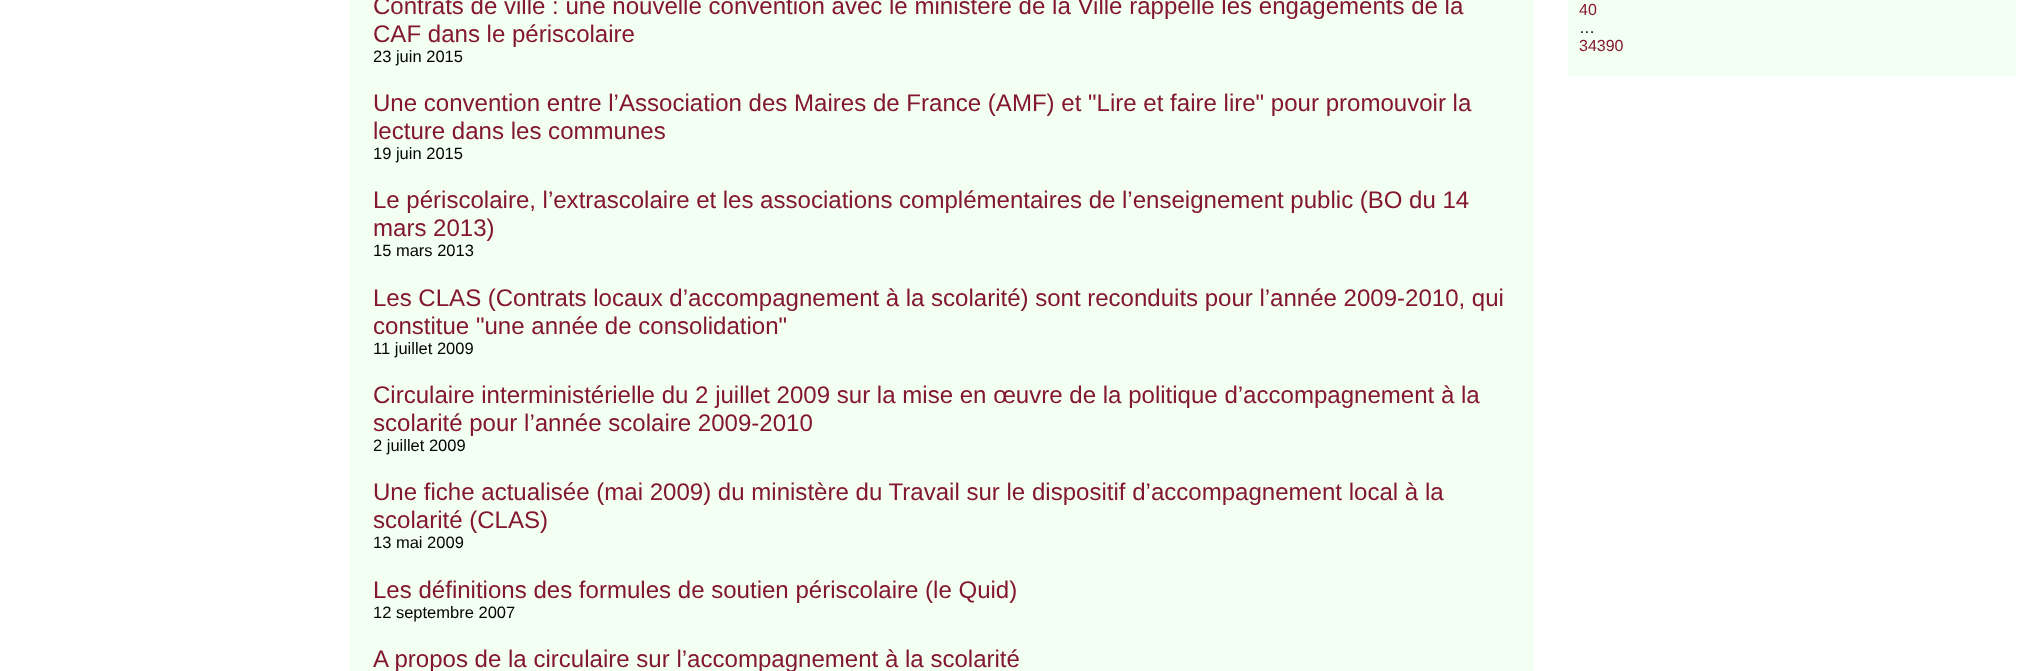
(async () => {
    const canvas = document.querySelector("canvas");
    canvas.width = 2034;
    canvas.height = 671;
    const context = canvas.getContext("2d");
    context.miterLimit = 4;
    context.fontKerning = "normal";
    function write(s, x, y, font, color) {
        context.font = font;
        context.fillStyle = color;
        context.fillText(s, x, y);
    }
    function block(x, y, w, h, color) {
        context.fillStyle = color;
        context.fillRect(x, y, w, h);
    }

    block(0, 0, 2034, 671, "rgb(255, 255, 255)");
    block(350, 0, 1184, 671, "rgb(243, 255, 243)");
    write("Contrats de ville : une nouvelle convention avec le ministère de la Ville rappelle les engagements de la", 373, 14, "24.05px Liberation Sans", "rgb(131, 23, 47)");
    write("CAF dans le périscolaire", 373, 42, "24.05px Liberation Sans", "rgb(131, 23, 47)");
    write("23 juin 2015", 373, 62, "16.5px Liberation Sans", "rgb(0, 0, 0)");
    write("Une convention entre l’Association des Maires de France (AMF) et \"Lire et faire lire\" pour promouvoir la", 373, 111, "24.05px Liberation Sans", "rgb(131, 23, 47)");
    write("lecture dans les communes", 373, 139, "24.05px Liberation Sans", "rgb(131, 23, 47)");
    write("19 juin 2015", 373, 159, "16.5px Liberation Sans", "rgb(0, 0, 0)");
    context.wordSpacing = "-0.1px";
    write("Le périscolaire, l’extrascolaire et les associations complémentaires de l’enseignement public (BO du 14", 373, 208, "24.05px Liberation Sans", "rgb(131, 23, 47)");
    context.wordSpacing = "0px";
    write("mars 2013)", 373, 236, "24.05px Liberation Sans", "rgb(131, 23, 47)");
    write("15 mars 2013", 373, 256, "16.5px Liberation Sans", "rgb(0, 0, 0)");
    context.wordSpacing = "-0.1px";
    write("Les CLAS (Contrats locaux d’accompagnement à la scolarité) sont reconduits pour l’année 2009-2010, qui", 373, 306, "24.05px Liberation Sans", "rgb(131, 23, 47)");
    context.wordSpacing = "0px";
    write("constitue \"une année de consolidation\"", 373, 334, "24.05px Liberation Sans", "rgb(131, 23, 47)");
    write("11 juillet 2009", 373, 354, "16.5px Liberation Sans", "rgb(0, 0, 0)");
    write("Circulaire interministérielle du 2 juillet 2009 sur la mise en œuvre de la politique d’accompagnement à la", 373, 403, "24.05px Liberation Sans", "rgb(131, 23, 47)");
    write("scolarité pour l’année scolaire 2009-2010", 373, 431, "24.05px Liberation Sans", "rgb(131, 23, 47)");
    write("2 juillet 2009", 373, 451, "16.5px Liberation Sans", "rgb(0, 0, 0)");
    write("Une fiche actualisée (mai 2009) du ministère du Travail sur le dispositif d’accompagnement local à la", 373, 500, "24.05px Liberation Sans", "rgb(131, 23, 47)");
    write("scolarité (CLAS)", 373, 528, "24.05px Liberation Sans", "rgb(131, 23, 47)");
    write("13 mai 2009", 373, 548, "16.5px Liberation Sans", "rgb(0, 0, 0)");
    write("Les définitions des formules de soutien périscolaire (le Quid)", 373, 598, "24.05px Liberation Sans", "rgb(131, 23, 47)");
    write("12 septembre 2007", 373, 618, "16.5px Liberation Sans", "rgb(0, 0, 0)");
    write("A propos de la circulaire sur l’accompagnement à la scolarité", 373, 667, "24.05px Liberation Sans", "rgb(131, 23, 47)");
    block(1568, 0, 448, 76, "rgb(243, 255, 243)");
    write("40", 1579, 15, "16px Liberation Sans", "rgb(131, 23, 47)");
    write("…", 1579, 33, "16px Liberation Sans", "rgb(0, 0, 0)");
    write("34390", 1579, 51, "16px Liberation Sans", "rgb(131, 23, 47)");
})();
